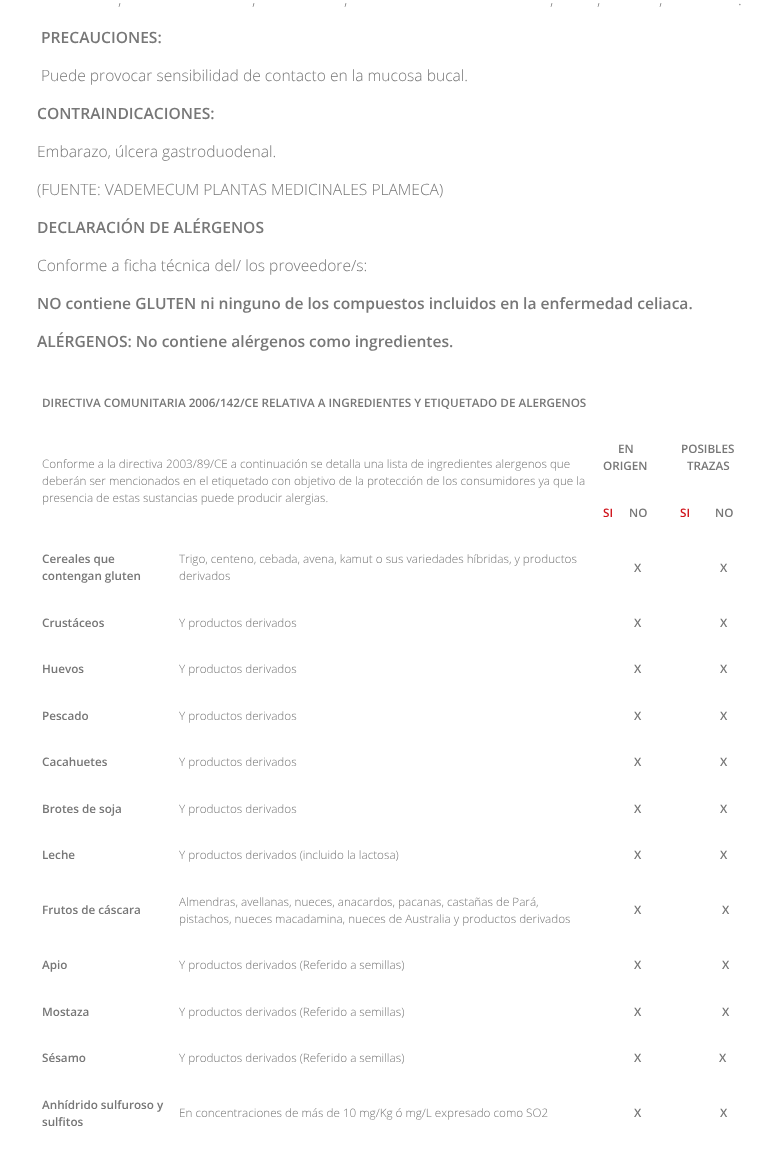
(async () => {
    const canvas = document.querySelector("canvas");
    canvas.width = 784;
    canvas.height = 1167;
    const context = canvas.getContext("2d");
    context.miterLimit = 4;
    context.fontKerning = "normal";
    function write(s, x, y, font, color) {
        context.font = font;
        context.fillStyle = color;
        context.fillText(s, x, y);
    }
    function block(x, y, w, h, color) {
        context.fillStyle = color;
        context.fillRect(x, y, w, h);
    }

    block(0, 0, 784, 1167, "rgb(255, 255, 255)");
    write(",", 118, 5, "300 15.6px Open Sans", "rgb(119, 119, 119)");
    write(",", 252, 5, "300 15.6px Open Sans", "rgb(119, 119, 119)");
    write(",", 344, 5, "300 15.6px Open Sans", "rgb(119, 119, 119)");
    write(",", 550, 5, "300 15.6px Open Sans", "rgb(119, 119, 119)");
    write(",", 597, 5, "300 15.6px Open Sans", "rgb(119, 119, 119)");
    write(",", 659, 5, "300 15.6px Open Sans", "rgb(119, 119, 119)");
    write(".", 738, 5, "300 15.6px Open Sans", "rgb(119, 119, 119)");
    write("PRECAUCIONES:", 41, 43, "600 15.6px Open Sans", "rgb(119, 119, 119)");
    write("Puede provocar sensibilidad de contacto en la mucosa bucal.", 41, 81, "300 15.6px Open Sans", "rgb(119, 119, 119)");
    write("CONTRAINDICACIONES:", 37, 119, "600 15.6px Open Sans", "rgb(119, 119, 119)");
    write("Embarazo, úlcera gastroduodenal.", 37, 157, "300 15.6px Open Sans", "rgb(119, 119, 119)");
    write("(FUENTE: VADEMECUM PLANTAS MEDICINALES PLAMECA)", 37, 195, "300 15.6px Open Sans", "rgb(119, 119, 119)");
    write("DECLARACIÓN DE ALÉRGENOS", 37, 233, "600 15.6px Open Sans", "rgb(119, 119, 119)");
    write("Conforme a ficha técnica del/ los proveedore/s:", 37, 271, "300 15.6px Open Sans", "rgb(119, 119, 119)");
    write("NO contiene GLUTEN ni ninguno de los compuestos incluidos en la enfermedad celiaca.", 37, 309, "600 15.6px Open Sans", "rgb(119, 119, 119)");
    write("ALÉRGENOS: No contiene alérgenos como ingredientes.", 37, 347, "600 15.6px Open Sans", "rgb(119, 119, 119)");
    write("DIRECTIVA COMUNITARIA 2006/142/CE RELATIVA A INGREDIENTES Y ETIQUETADO DE ALERGENOS", 42, 407, "600 11.7px Open Sans", "rgb(119, 119, 119)");
    write("Conforme a la directiva 2003/89/CE a continuación se detalla una lista de ingredientes alergenos que", 42, 468, "300 11.7px Open Sans", "rgb(119, 119, 119)");
    write("deberán ser mencionados en el etiquetado con objetivo de la protección de los consumidores ya que la", 42, 485, "300 11.7px Open Sans", "rgb(119, 119, 119)");
    write("presencia de estas sustancias puede producir alergias.", 42, 502, "300 11.7px Open Sans", "rgb(119, 119, 119)");
    write("EN", 618, 453, "600 11.7px Open Sans", "rgb(119, 119, 119)");
    write("ORIGEN", 603, 470, "600 11.7px Open Sans", "rgb(119, 119, 119)");
    write("POSIBLES", 681, 453, "600 11.7px Open Sans", "rgb(119, 119, 119)");
    write("TRAZAS", 687, 470, "600 11.7px Open Sans", "rgb(119, 119, 119)");
    write("SI", 603, 517, "600 11.7px Open Sans", "rgb(208, 18, 26)");
    write("NO", 629, 517, "600 11.7px Open Sans", "rgb(119, 119, 119)");
    write("SI", 680, 517, "600 11.7px Open Sans", "rgb(208, 18, 26)");
    write("NO", 715, 517, "600 11.7px Open Sans", "rgb(119, 119, 119)");
    write("Cereales que", 42, 563, "600 11.7px Open Sans", "rgb(119, 119, 119)");
    write("contengan gluten", 42, 580, "600 11.7px Open Sans", "rgb(119, 119, 119)");
    write("Trigo, centeno, cebada, avena, kamut o sus variedades híbridas, y productos", 179, 563, "300 11.7px Open Sans", "rgb(119, 119, 119)");
    write("derivados", 179, 580, "300 11.7px Open Sans", "rgb(119, 119, 119)");
    write("X", 634, 572, "600 11.7px Open Sans", "rgb(119, 119, 119)");
    write("X", 720, 572, "600 11.7px Open Sans", "rgb(119, 119, 119)");
    write("Crustáceos", 42, 627, "600 11.7px Open Sans", "rgb(119, 119, 119)");
    write("Y productos derivados", 179, 627, "300 11.7px Open Sans", "rgb(119, 119, 119)");
    write("X", 634, 627, "600 11.7px Open Sans", "rgb(119, 119, 119)");
    write("X", 720, 627, "600 11.7px Open Sans", "rgb(119, 119, 119)");
    write("Huevos", 42, 673, "600 11.7px Open Sans", "rgb(119, 119, 119)");
    write("Y productos derivados", 179, 673, "300 11.7px Open Sans", "rgb(119, 119, 119)");
    write("X", 634, 673, "600 11.7px Open Sans", "rgb(119, 119, 119)");
    write("X", 720, 673, "600 11.7px Open Sans", "rgb(119, 119, 119)");
    write("Pescado", 42, 720, "600 11.7px Open Sans", "rgb(119, 119, 119)");
    write("Y productos derivados", 179, 720, "300 11.7px Open Sans", "rgb(119, 119, 119)");
    write("X", 634, 720, "600 11.7px Open Sans", "rgb(119, 119, 119)");
    write("X", 720, 720, "600 11.7px Open Sans", "rgb(119, 119, 119)");
    write("Cacahuetes", 42, 766, "600 11.7px Open Sans", "rgb(119, 119, 119)");
    write("Y productos derivados", 179, 766, "300 11.7px Open Sans", "rgb(119, 119, 119)");
    write("X", 634, 766, "600 11.7px Open Sans", "rgb(119, 119, 119)");
    write("X", 720, 766, "600 11.7px Open Sans", "rgb(119, 119, 119)");
    write("Brotes de soja", 42, 813, "600 11.7px Open Sans", "rgb(119, 119, 119)");
    write("Y productos derivados", 179, 813, "300 11.7px Open Sans", "rgb(119, 119, 119)");
    write("X", 634, 813, "600 11.7px Open Sans", "rgb(119, 119, 119)");
    write("X", 720, 813, "600 11.7px Open Sans", "rgb(119, 119, 119)");
    write("Leche", 42, 859, "600 11.7px Open Sans", "rgb(119, 119, 119)");
    write("Y productos derivados (incluido la lactosa)", 179, 859, "300 11.7px Open Sans", "rgb(119, 119, 119)");
    write("X", 634, 859, "600 11.7px Open Sans", "rgb(119, 119, 119)");
    write("X", 720, 859, "600 11.7px Open Sans", "rgb(119, 119, 119)");
    write("Frutos de cáscara", 42, 914, "600 11.7px Open Sans", "rgb(119, 119, 119)");
    write("Almendras, avellanas, nueces, anacardos, pacanas, castañas de Pará,", 179, 906, "300 11.7px Open Sans", "rgb(119, 119, 119)");
    write("pistachos, nueces macadamina, nueces de Australia y productos derivados", 179, 923, "300 11.7px Open Sans", "rgb(119, 119, 119)");
    write("X", 634, 914, "600 11.7px Open Sans", "rgb(119, 119, 119)");
    write("X", 722, 914, "600 11.7px Open Sans", "rgb(119, 119, 119)");
    write("Apio", 42, 969, "600 11.7px Open Sans", "rgb(119, 119, 119)");
    write("Y productos derivados (Referido a semillas)", 179, 969, "300 11.7px Open Sans", "rgb(119, 119, 119)");
    write("X", 634, 969, "600 11.7px Open Sans", "rgb(119, 119, 119)");
    write("X", 722, 969, "600 11.7px Open Sans", "rgb(119, 119, 119)");
    write("Mostaza", 42, 1016, "600 11.7px Open Sans", "rgb(119, 119, 119)");
    write("Y productos derivados (Referido a semillas)", 179, 1016, "300 11.7px Open Sans", "rgb(119, 119, 119)");
    write("X", 634, 1016, "600 11.7px Open Sans", "rgb(119, 119, 119)");
    write("X", 722, 1016, "600 11.7px Open Sans", "rgb(119, 119, 119)");
    write("Sésamo", 42, 1062, "600 11.7px Open Sans", "rgb(119, 119, 119)");
    write("Y productos derivados (Referido a semillas)", 179, 1062, "300 11.7px Open Sans", "rgb(119, 119, 119)");
    write("X", 634, 1062, "600 11.7px Open Sans", "rgb(119, 119, 119)");
    write("X", 719, 1062, "600 11.7px Open Sans", "rgb(119, 119, 119)");
    write("Anhídrido sulfuroso y", 42, 1109, "600 11.7px Open Sans", "rgb(119, 119, 119)");
    write("sulfitos", 42, 1126, "600 11.7px Open Sans", "rgb(119, 119, 119)");
    write("En concentraciones de más de 10 mg/Kg ó mg/L expresado como SO2", 179, 1117, "300 11.7px Open Sans", "rgb(119, 119, 119)");
    write("X", 634, 1117, "600 11.7px Open Sans", "rgb(119, 119, 119)");
    write("X", 720, 1117, "600 11.7px Open Sans", "rgb(119, 119, 119)");
})();
